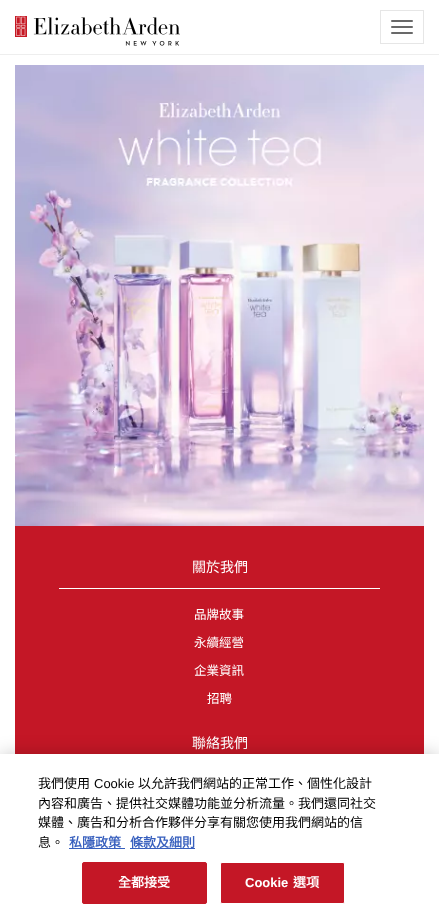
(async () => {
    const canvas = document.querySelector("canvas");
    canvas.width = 439;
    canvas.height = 914;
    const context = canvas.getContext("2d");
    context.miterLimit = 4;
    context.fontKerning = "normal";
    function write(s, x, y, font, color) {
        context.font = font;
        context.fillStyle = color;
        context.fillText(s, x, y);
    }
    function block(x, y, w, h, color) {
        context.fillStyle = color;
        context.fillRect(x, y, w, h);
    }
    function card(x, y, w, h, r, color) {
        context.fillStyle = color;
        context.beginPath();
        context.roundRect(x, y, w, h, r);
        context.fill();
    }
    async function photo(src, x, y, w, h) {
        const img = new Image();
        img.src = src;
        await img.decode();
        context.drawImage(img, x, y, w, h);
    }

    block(0, 0, 439, 914, "rgb(255, 255, 255)");
    block(0, 54, 439, 1, "rgb(238, 238, 238)");
    await photo("media/1.png", 15, 16, 165, 30);
    context.strokeStyle = "rgb(230, 230, 230)";
    context.strokeRect(380.5, 10.5, 43, 33);
    card(391, 20, 22, 2, 1, "rgb(105, 105, 105)");
    card(391, 26, 22, 2, 1, "rgb(105, 105, 105)");
    card(391, 32, 22, 2, 1, "rgb(105, 105, 105)");
    await photo("media/2.png", 15, 65, 409, 461);
    block(15, 526, 409, 228, "rgb(196, 23, 38)");
    block(59, 588, 321, 1, "rgb(255, 255, 255)");
    write("關於我們", 192, 572, "14px Noto Sans CJK HK", "rgb(255, 255, 255)");
    write("品牌故事", 194, 619, "12.5px Noto Sans CJK HK", "rgb(255, 255, 255)");
    write("永續經營", 194, 647, "12.5px Noto Sans CJK HK", "rgb(255, 255, 255)");
    write("企業資訊", 194, 675, "12.5px Noto Sans CJK HK", "rgb(255, 255, 255)");
    write("招聘", 207, 703, "12.5px Noto Sans CJK HK", "rgb(255, 255, 255)");
    write("聯絡我們", 192, 748, "14px Noto Sans CJK HK", "rgb(255, 255, 255)");
    context.fillStyle = "rgba(0, 0, 0, 0.2)";
    context.filter = "blur(9px)";
    context.beginPath();
    context.rect(0, 754, 439, 160);
    context.fill();
    context.filter = "none";
    block(0, 754, 439, 160, "rgb(255, 255, 255)");
    write("我們使用", 38, 788, "13px Noto Sans CJK HK", "rgb(0, 0, 0)");
    write("Cookie", 94, 788, "13px Liberation Sans", "rgb(0, 0, 0)");
    write("以允許我們網站的正常工作、個性化設計", 138, 788, "13px Noto Sans CJK HK", "rgb(0, 0, 0)");
    write("內容和廣告、提供社交媒體功能並分析流量。我們還同社交", 38, 808, "13px Noto Sans CJK HK", "rgb(0, 0, 0)");
    write("媒體、廣告和分析合作夥伴分享有關您使用我們網站的信", 38, 827, "13px Noto Sans CJK HK", "rgb(0, 0, 0)");
    write("息。", 38, 847, "13px Noto Sans CJK HK", "rgb(0, 0, 0)");
    block(69, 848, 56, 1, "rgb(56, 96, 190)");
    write("私隱政策", 69, 847, "bold 13px Noto Sans CJK HK", "rgb(56, 96, 190)");
    block(130, 848, 65, 1, "rgb(56, 96, 190)");
    write("條款及細則", 130, 847, "bold 13px Noto Sans CJK HK", "rgb(56, 96, 190)");
    context.fillStyle = "rgb(196, 23, 38)";
    context.beginPath();
    context.roundRect(82.5, 862.5, 124, 41, 1.5);
    context.fill();
    context.strokeStyle = "rgb(196, 23, 38)";
    context.stroke();
    write("全都接受", 118, 887, "bold 13px Noto Sans CJK HK", "rgb(255, 255, 255)");
    context.fillStyle = "rgb(196, 23, 38)";
    context.beginPath();
    context.roundRect(220.5, 862.5, 124, 41, 1.5);
    context.fill();
    context.strokeStyle = "rgb(255, 255, 255)";
    context.stroke();
    write("Cookie", 245, 887, "bold 13px Liberation Sans", "rgb(255, 255, 255)");
    write("選項", 293, 887, "bold 13px Noto Sans CJK HK", "rgb(255, 255, 255)");
})();
